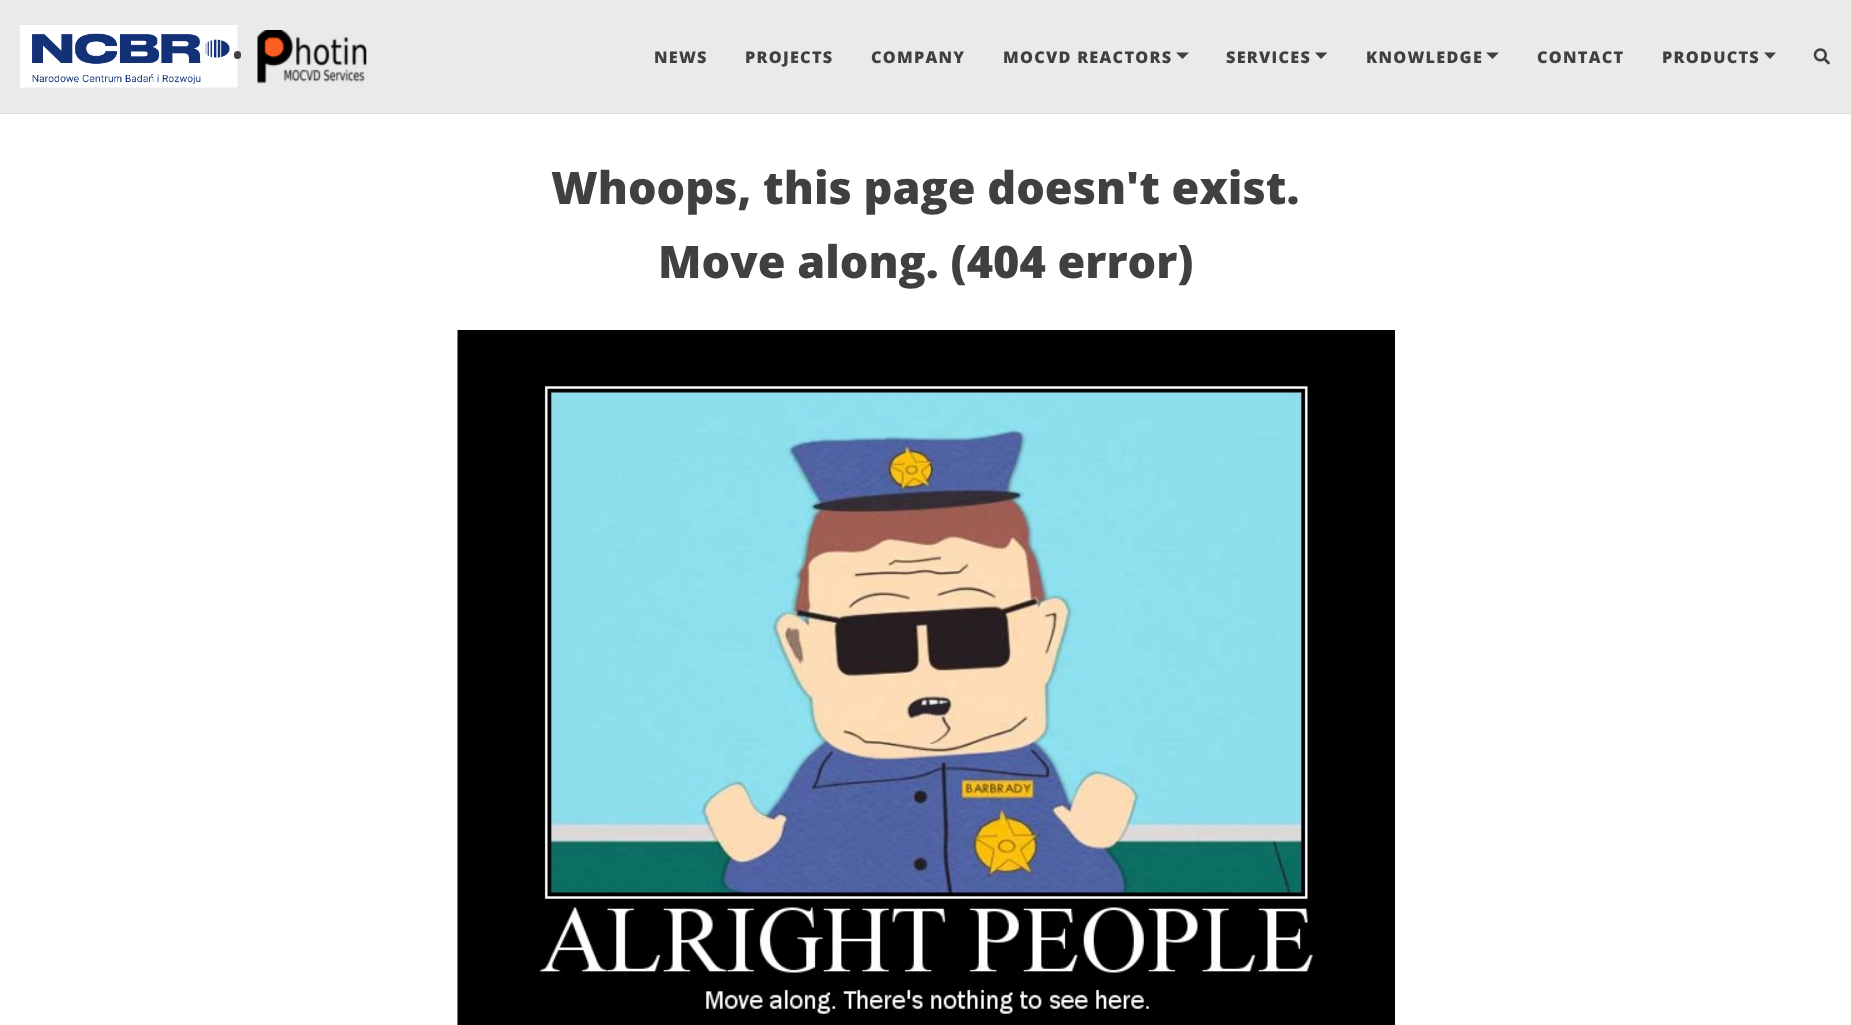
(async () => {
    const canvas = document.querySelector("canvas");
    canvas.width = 1851;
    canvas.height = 1025;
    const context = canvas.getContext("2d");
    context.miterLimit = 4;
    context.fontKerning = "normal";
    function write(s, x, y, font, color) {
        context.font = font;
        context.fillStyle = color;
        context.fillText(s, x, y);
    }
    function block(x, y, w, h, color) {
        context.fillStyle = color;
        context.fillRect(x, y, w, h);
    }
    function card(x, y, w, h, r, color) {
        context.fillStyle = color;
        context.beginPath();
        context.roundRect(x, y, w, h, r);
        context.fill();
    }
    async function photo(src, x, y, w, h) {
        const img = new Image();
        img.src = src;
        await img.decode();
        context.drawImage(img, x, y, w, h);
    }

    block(0, 0, 1851, 1025, "rgb(255, 255, 255)");
    block(0, 0, 1851, 113, "rgb(234, 234, 234)");
    block(0, 113, 1851, 1, "rgb(221, 221, 221)");
    await photo("media/1.png", 20, 25, 218, 63);
    card(234, 51, 7, 8, 3.5, "rgb(64, 64, 64)");
    await photo("media/2.png", 257, 30, 110, 54);
    context.letterSpacing = "1.25px";
    write("NEWS", 654, 63, "800 16.25px Open Sans", "rgb(64, 64, 64)");
    write("PROJECTS", 745, 63, "800 16.25px Open Sans", "rgb(64, 64, 64)");
    write("COMPANY", 871, 63, "800 16.25px Open Sans", "rgb(64, 64, 64)");
    write("MOCVD REACTORS", 1003, 63, "800 16.25px Open Sans", "rgb(64, 64, 64)");
    context.beginPath();
    context.moveTo(1176, 52.5);
    context.lineTo(1189, 52.5);
    context.lineTo(1182.5, 59);
    context.closePath();
    context.fill();
    write("SERVICES", 1226, 63, "800 16.25px Open Sans", "rgb(64, 64, 64)");
    context.beginPath();
    context.moveTo(1315, 52.5);
    context.lineTo(1327.5, 52.5);
    context.lineTo(1321, 59);
    context.closePath();
    context.fill();
    write("KNOWLEDGE", 1366, 63, "800 16.25px Open Sans", "rgb(64, 64, 64)");
    context.beginPath();
    context.moveTo(1486, 52.5);
    context.lineTo(1499, 52.5);
    context.lineTo(1492.5, 59);
    context.closePath();
    context.fill();
    write("CONTACT", 1537, 63, "800 16.25px Open Sans", "rgb(64, 64, 64)");
    write("PRODUCTS", 1662, 63, "800 16.25px Open Sans", "rgb(64, 64, 64)");
    context.beginPath();
    context.moveTo(1764, 52.5);
    context.lineTo(1776, 52.5);
    context.lineTo(1770, 59);
    context.closePath();
    context.fill();
    await photo("media/3.png", 1813, 48, 17, 17);
    context.letterSpacing = "0px";
    write("Whoops, this page doesn't exist.", 551, 204, "800 45px Open Sans", "rgb(64, 64, 64)");
    write("Move along. (404 error)", 658, 278, "800 45px Open Sans", "rgb(64, 64, 64)");
    await photo("media/4.png", 457, 330, 938, 695);
})();
